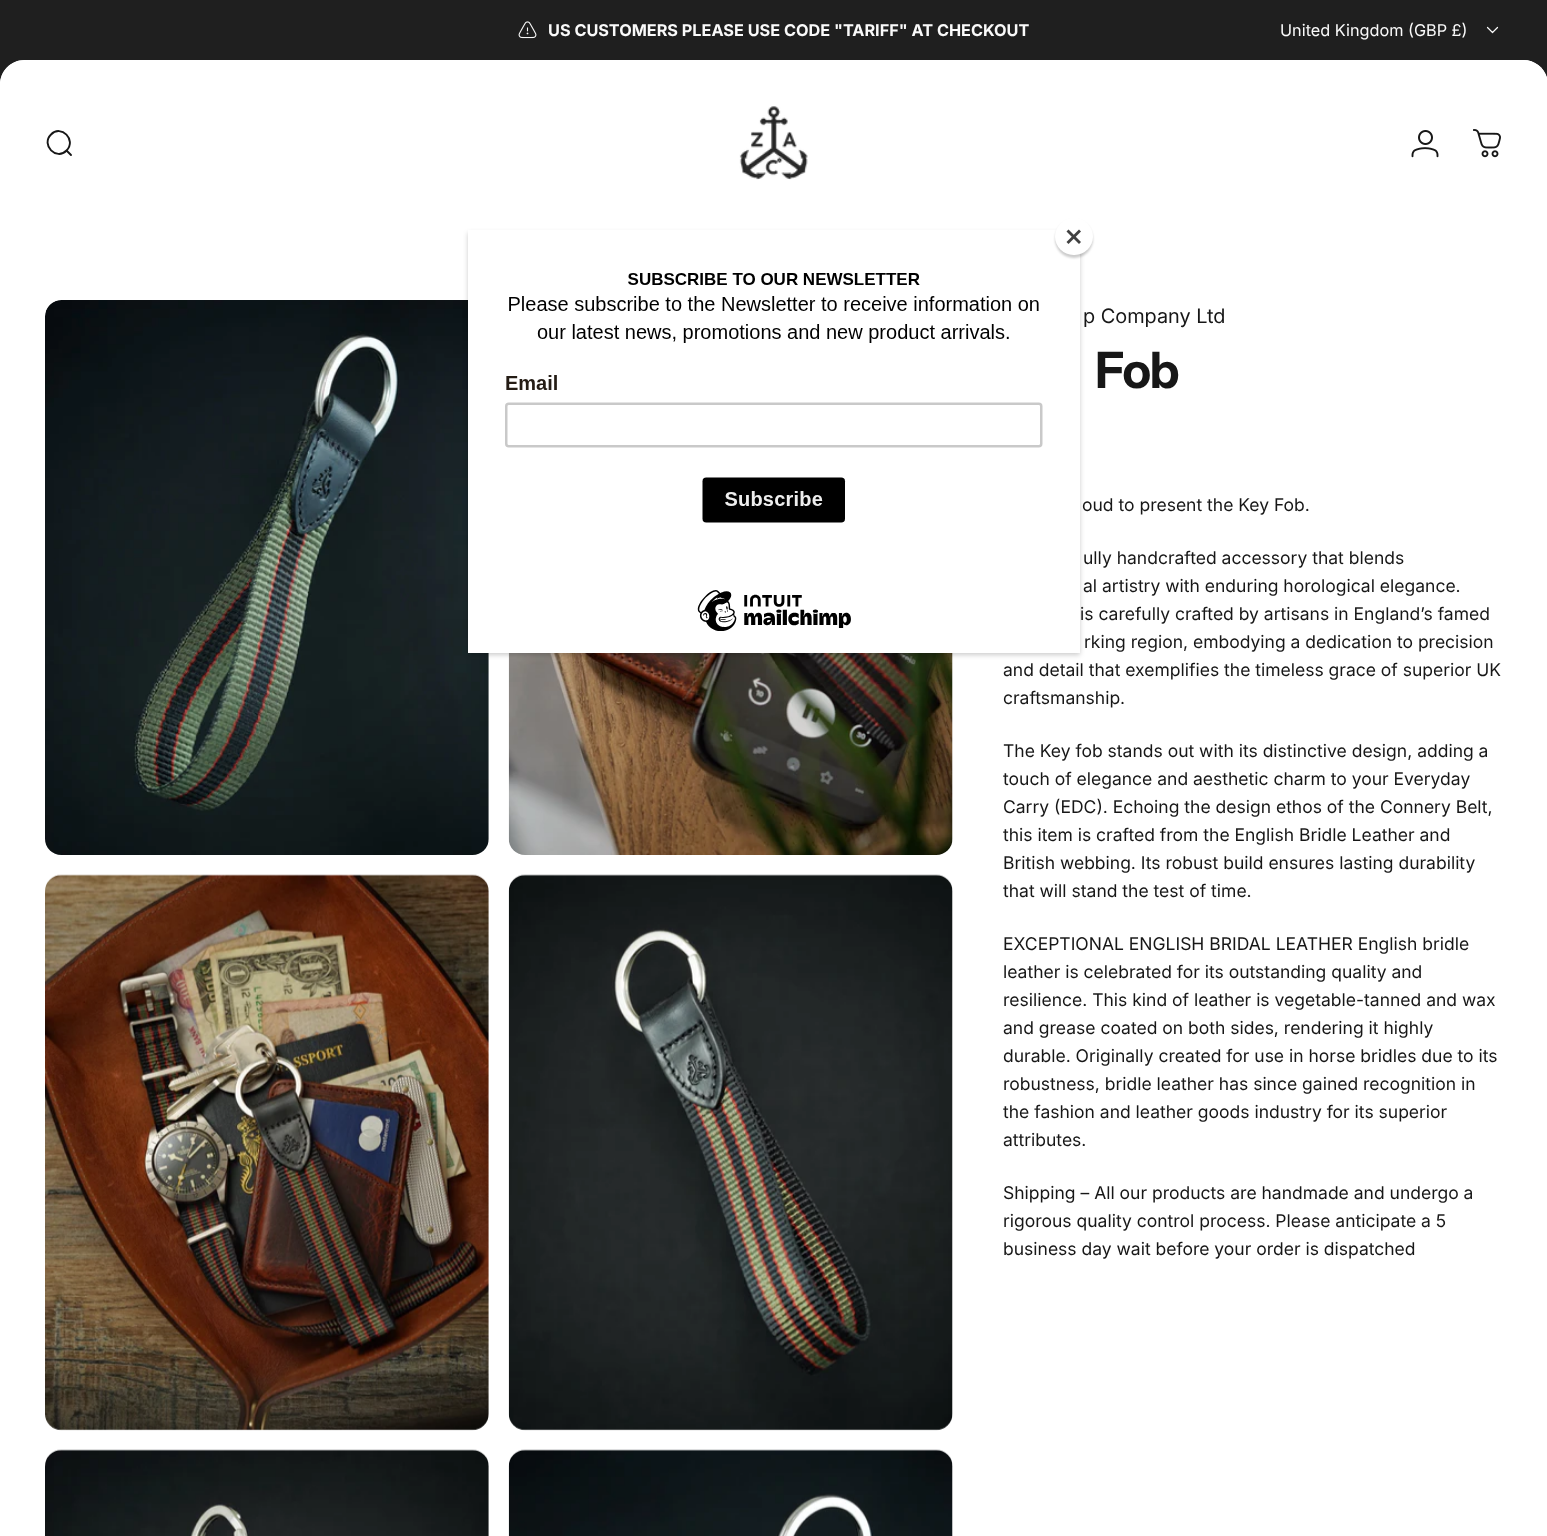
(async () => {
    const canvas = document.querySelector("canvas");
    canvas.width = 1547;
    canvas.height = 1536;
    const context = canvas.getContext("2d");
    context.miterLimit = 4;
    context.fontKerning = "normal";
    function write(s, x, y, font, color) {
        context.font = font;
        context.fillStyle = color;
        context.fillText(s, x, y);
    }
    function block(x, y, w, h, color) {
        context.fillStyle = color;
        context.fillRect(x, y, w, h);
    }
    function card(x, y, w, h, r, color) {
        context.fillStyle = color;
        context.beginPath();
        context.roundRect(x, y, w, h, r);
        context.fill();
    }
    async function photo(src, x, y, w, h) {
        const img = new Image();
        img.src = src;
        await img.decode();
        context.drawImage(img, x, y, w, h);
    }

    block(0, 0, 1547, 1536, "rgb(255, 255, 255)");
    block(0, 0, 1547, 60, "rgb(31, 31, 31)");
    await photo("media/1.png", 518, 21, 19, 18);
    write("US CUSTOMERS PLEASE USE CODE \"TARIFF\" AT CHECKOUT", 548, 36, "bold 16.25px 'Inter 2'", "rgb(250, 250, 250)");
    write("United Kingdom (GBP £)", 1280, 36, "16.25px 'Inter 2'", "rgb(250, 250, 250)");
    context.beginPath();
    context.moveTo(1487.5, 27.5);
    context.lineTo(1492.5, 32.5);
    context.lineTo(1497.5, 27.5);
    context.strokeStyle = "rgb(250, 250, 250)";
    context.lineWidth = 1.2;
    context.lineCap = "round";
    context.lineJoin = "round";
    context.stroke();
    context.fillStyle = "rgb(31, 31, 31)";
    context.beginPath();
    context.moveTo(24.5, 60);
    context.lineTo(0, 60);
    context.lineTo(0, 84.5);
    context.bezierCurveTo(0, 71, 11, 60, 24.5, 60);
    context.closePath();
    context.fill("evenodd");
    context.beginPath();
    context.moveTo(1523.5, 60);
    context.lineTo(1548, 60);
    context.lineTo(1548, 84.5);
    context.bezierCurveTo(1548, 71, 1537, 60, 1523.5, 60);
    context.closePath();
    context.fill("evenodd");
    context.fillStyle = "rgb(255, 255, 255)";
    context.beginPath();
    context.moveTo(25, 60);
    context.lineTo(1523, 60);
    context.bezierCurveTo(1537, 60, 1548, 71, 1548, 85);
    context.lineTo(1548, 300);
    context.lineTo(0, 300);
    context.lineTo(0, 85);
    context.bezierCurveTo(0, 71, 11, 60, 25, 60);
    context.closePath();
    context.fill();
    context.beginPath();
    context.moveTo(71, 155);
    context.lineTo(66.5, 150.5);
    context.moveTo(66.5, 150.5);
    context.bezierCurveTo(77, 140, 61, 124, 51, 134.5);
    context.bezierCurveTo(40.5, 145, 56.5, 161, 66.5, 150.5);
    context.closePath();
    context.strokeStyle = "rgb(23, 23, 23)";
    context.lineWidth = 1.9;
    context.lineJoin = "miter";
    context.stroke();
    await photo("media/2.png", 739, 106, 69, 74);
    await photo("media/3.png", 1411, 130, 28, 28);
    await photo("media/4.png", 1473, 129, 28, 29);
    card(45, 300, 444, 555, 16, "rgb(250, 250, 250)");
    await photo("media/6.png", 45, 300, 444, 555);
    card(509, 300, 444, 555, 16, "rgb(250, 250, 250)");
    await photo("media/7.png", 508, 653, 445, 202);
    context.fillStyle = "rgba(0, 0, 0, 0.2)";
    context.filter = "blur(2.5px)";
    context.beginPath();
    context.rect(468, 233, 612, 422);
    context.fill();
    context.filter = "none";
    await photo("media/5.png", 468, 230, 612, 423);
    context.filter = "blur(1px)";
    context.beginPath();
    context.roundRect(1055, 220, 38, 38, 19);
    context.fill();
    context.filter = "none";
    card(1055, 218, 38, 37, 18.5, "rgb(255, 255, 255)");
    context.fillStyle = "rgb(65, 65, 65)";
    context.beginPath();
    context.moveTo(1079, 229.5);
    context.lineTo(1081, 231.5);
    context.lineTo(1068.5, 244);
    context.lineTo(1066.5, 242);
    context.closePath();
    context.fill();
    context.beginPath();
    context.moveTo(1066.5, 231.5);
    context.lineTo(1068.5, 229.5);
    context.lineTo(1081, 242);
    context.lineTo(1079, 244);
    context.closePath();
    context.fill();
    card(45, 875, 444, 555, 16, "rgb(250, 250, 250)");
    await photo("media/8.png", 45, 874, 444, 557);
    card(509, 875, 444, 555, 16, "rgb(250, 250, 250)");
    await photo("media/9.png", 508, 874, 445, 557);
    card(45, 1450, 444, 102, 16, "rgb(250, 250, 250)");
    await photo("media/10.png", 45, 1449, 444, 87);
    card(509, 1450, 444, 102, 16, "rgb(250, 250, 250)");
    await photo("media/11.png", 508, 1449, 445, 87);
    write("p Company Ltd", 1083, 323, "20px Inter", "rgb(23, 23, 23)");
    context.letterSpacing = "-1.5px";
    write("Fob", 1095, 388, "bold 50px Inter", "rgb(23, 23, 23)");
    context.letterSpacing = "0px";
    write("oud to present the Key Fob.", 1082, 511, "17.5px 'Inter 2'", "rgb(23, 23, 23)");
    write("ully handcrafted accessory that blends", 1083, 564, "17.5px 'Inter 2'", "rgb(23, 23, 23)");
    write("al artistry with enduring horological elegance.", 1083, 592, "17.5px 'Inter 2'", "rgb(23, 23, 23)");
    write("is carefully crafted by artisans in England’s famed", 1080, 620, "17.5px 'Inter 2'", "rgb(23, 23, 23)");
    write("rking region, embodying a dedication to precision", 1084, 648, "17.5px 'Inter 2'", "rgb(23, 23, 23)");
    write("and detail that exemplifies the timeless grace of superior UK", 1003, 676, "17.5px 'Inter 2'", "rgb(23, 23, 23)");
    write("craftsmanship.", 1003, 704, "17.5px 'Inter 2'", "rgb(23, 23, 23)");
    write("The Key fob stands out with its distinctive design, adding a", 1003, 757, "17.5px 'Inter 2'", "rgb(23, 23, 23)");
    write("touch of elegance and aesthetic charm to your Everyday", 1003, 785, "17.5px 'Inter 2'", "rgb(23, 23, 23)");
    write("Carry (EDC). Echoing the design ethos of the Connery Belt,", 1003, 813, "17.5px 'Inter 2'", "rgb(23, 23, 23)");
    write("this item is crafted from the English Bridle Leather and", 1003, 841, "17.5px 'Inter 2'", "rgb(23, 23, 23)");
    write("British webbing. Its robust build ensures lasting durability", 1003, 869, "17.5px 'Inter 2'", "rgb(23, 23, 23)");
    write("that will stand the test of time.", 1003, 897, "17.5px 'Inter 2'", "rgb(23, 23, 23)");
    write("EXCEPTIONAL ENGLISH BRIDAL LEATHER English bridle", 1003, 950, "17.5px 'Inter 2'", "rgb(23, 23, 23)");
    write("leather is celebrated for its outstanding quality and", 1003, 978, "17.5px 'Inter 2'", "rgb(23, 23, 23)");
    write("resilience. This kind of leather is vegetable-tanned and wax", 1003, 1006, "17.5px 'Inter 2'", "rgb(23, 23, 23)");
    write("and grease coated on both sides, rendering it highly", 1003, 1034, "17.5px 'Inter 2'", "rgb(23, 23, 23)");
    write("durable. Originally created for use in horse bridles due to its", 1003, 1062, "17.5px 'Inter 2'", "rgb(23, 23, 23)");
    write("robustness, bridle leather has since gained recognition in", 1003, 1090, "17.5px 'Inter 2'", "rgb(23, 23, 23)");
    write("the fashion and leather goods industry for its superior", 1003, 1118, "17.5px 'Inter 2'", "rgb(23, 23, 23)");
    write("attributes.", 1003, 1146, "17.5px 'Inter 2'", "rgb(23, 23, 23)");
    write("Shipping – All our products are handmade and undergo a", 1003, 1199, "17.5px 'Inter 2'", "rgb(23, 23, 23)");
    write("rigorous quality control process. Please anticipate a 5", 1003, 1227, "17.5px 'Inter 2'", "rgb(23, 23, 23)");
    write("business day wait before your order is dispatched", 1003, 1255, "17.5px 'Inter 2'", "rgb(23, 23, 23)");
})();
